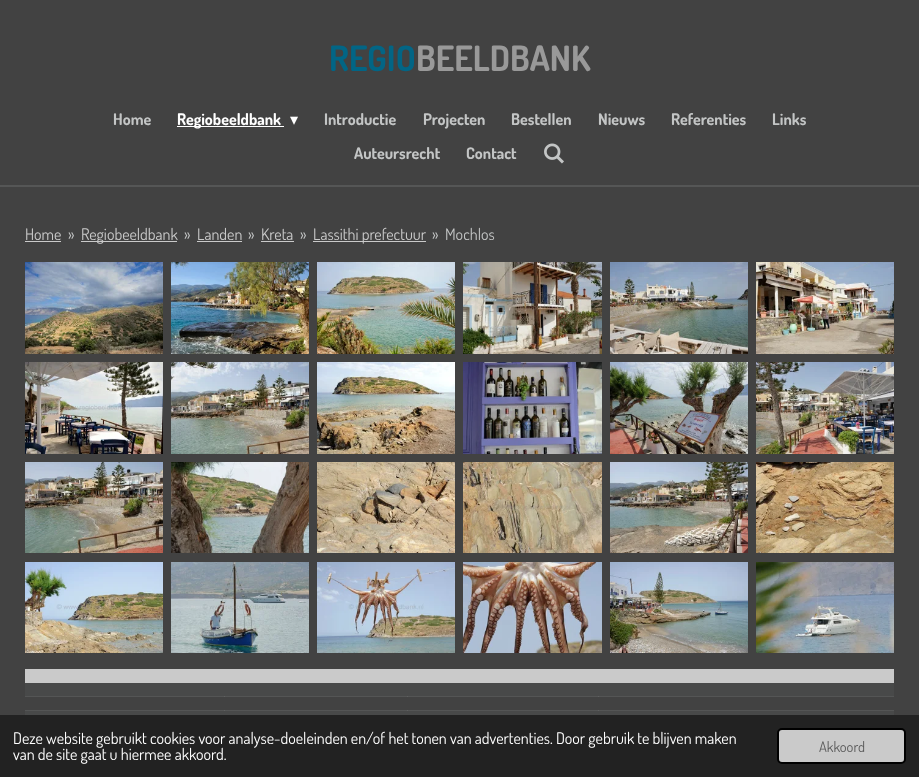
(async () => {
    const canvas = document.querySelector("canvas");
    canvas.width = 919;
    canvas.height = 777;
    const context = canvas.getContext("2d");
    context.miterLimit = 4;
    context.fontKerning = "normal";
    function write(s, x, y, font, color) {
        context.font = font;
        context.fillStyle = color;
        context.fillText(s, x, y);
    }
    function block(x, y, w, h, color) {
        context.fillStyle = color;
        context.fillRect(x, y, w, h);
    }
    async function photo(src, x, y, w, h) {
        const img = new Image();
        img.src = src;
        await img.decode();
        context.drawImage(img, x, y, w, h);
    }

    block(0, 0, 919, 777, "rgb(66, 66, 66)");
    write("REGIO", 329, 71, "bold 35px Dosis", "rgb(2, 101, 133)");
    write("BEELDBANK", 416, 71, "bold 35px Dosis", "rgb(153, 153, 153)");
    write("Home", 113, 125, "bold 16px Dosis", "rgb(195, 197, 197)");
    block(177, 126, 107, 1, "rgb(255, 255, 255)");
    write("Regiobeeldbank", 177, 125, "bold 16px Dosis", "rgb(255, 255, 255)");
    write("▾", 290, 125, "16px DejaVu Sans", "rgb(255, 255, 255)");
    write("Introductie", 324, 125, "bold 16px Dosis", "rgb(195, 197, 197)");
    write("Projecten", 423, 125, "bold 16px Dosis", "rgb(195, 197, 197)");
    write("Bestellen", 511, 125, "bold 16px Dosis", "rgb(195, 197, 197)");
    write("Nieuws", 598, 125, "bold 16px Dosis", "rgb(195, 197, 197)");
    write("Referenties", 671, 125, "bold 16px Dosis", "rgb(195, 197, 197)");
    write("Links", 772, 125, "bold 16px Dosis", "rgb(195, 197, 197)");
    write("Auteursrecht", 354, 159, "bold 16px Dosis", "rgb(195, 197, 197)");
    write("Contact", 466, 159, "bold 16px Dosis", "rgb(195, 197, 197)");
    await photo("media/1.png", 544, 143, 20, 21);
    block(0, 185, 919, 2, "rgb(85, 86, 86)");
    write("Home", 25, 240, "16px Dosis", "rgb(202, 202, 202)");
    block(25, 241, 36, 1, "rgb(202, 202, 202)");
    write("»", 68, 240, "16px Dosis", "rgb(195, 197, 197)");
    block(81, 241, 96, 1, "rgb(202, 202, 202)");
    write("Regiobeeldbank", 81, 240, "16px Dosis", "rgb(202, 202, 202)");
    write("»", 184, 240, "16px Dosis", "rgb(195, 197, 197)");
    write("Landen", 197, 240, "16px Dosis", "rgb(202, 202, 202)");
    block(197, 241, 45, 1, "rgb(202, 202, 202)");
    write("»", 248, 240, "16px Dosis", "rgb(195, 197, 197)");
    write("Kreta", 261, 240, "16px Dosis", "rgb(202, 202, 202)");
    block(261, 241, 33, 1, "rgb(202, 202, 202)");
    write("»", 300, 240, "16px Dosis", "rgb(195, 197, 197)");
    block(313, 241, 113, 1, "rgb(202, 202, 202)");
    write("Lassithi prefectuur", 313, 240, "16px Dosis", "rgb(202, 202, 202)");
    write("»", 432, 240, "16px Dosis", "rgb(195, 197, 197)");
    write("Mochlos", 445, 240, "16px Dosis", "rgb(195, 197, 197)");
    await photo("media/2.png", 25, 262, 138, 92);
    await photo("media/3.png", 171, 262, 138, 92);
    await photo("media/4.png", 317, 262, 138, 92);
    await photo("media/5.png", 463, 262, 139, 92);
    await photo("media/6.png", 610, 262, 138, 92);
    await photo("media/7.png", 756, 262, 138, 92);
    await photo("media/8.png", 25, 362, 138, 92);
    await photo("media/9.png", 171, 362, 138, 92);
    await photo("media/10.png", 317, 362, 138, 92);
    await photo("media/11.png", 463, 362, 139, 92);
    await photo("media/12.png", 610, 362, 138, 92);
    await photo("media/13.png", 756, 362, 138, 92);
    await photo("media/14.png", 25, 462, 138, 91);
    await photo("media/15.png", 171, 462, 138, 91);
    await photo("media/16.png", 317, 462, 138, 91);
    await photo("media/17.png", 463, 462, 139, 91);
    await photo("media/18.png", 610, 462, 138, 91);
    await photo("media/19.png", 756, 462, 138, 91);
    await photo("media/20.png", 25, 562, 138, 91);
    await photo("media/21.png", 171, 562, 138, 91);
    await photo("media/22.png", 317, 562, 138, 91);
    await photo("media/23.png", 463, 562, 139, 91);
    await photo("media/24.png", 610, 562, 138, 91);
    await photo("media/25.png", 756, 562, 138, 91);
    block(25, 669, 869, 14, "rgb(202, 202, 202)");
    block(25, 683, 869, 13, "rgb(72, 73, 73)");
    block(25, 696, 869, 1, "rgb(84, 85, 85)");
    block(224, 696, 1, 1, "rgb(95, 96, 96)");
    block(407, 696, 1, 1, "rgb(95, 96, 96)");
    block(598, 696, 1, 1, "rgb(95, 96, 96)");
    block(25, 711, 869, 4, "rgb(72, 73, 73)");
    block(25, 710, 869, 1, "rgb(84, 85, 85)");
    block(224, 710, 1, 1, "rgb(95, 96, 96)");
    block(407, 710, 1, 1, "rgb(95, 96, 96)");
    block(598, 710, 1, 1, "rgb(95, 96, 96)");
    block(0, 715, 919, 62, "rgb(34, 34, 34)");
    write("Deze website gebruikt cookies voor analyse-doeleinden en/of het tonen van advertenties. Door gebruik te blijven maken", 13, 744, "16px Dosis", "rgb(255, 255, 255)");
    write("van de site gaat u hiermee akkoord.", 13, 760, "16px Dosis", "rgb(255, 255, 255)");
    context.fillStyle = "rgb(202, 202, 202)";
    context.beginPath();
    context.roundRect(778, 729, 127, 34, 4);
    context.fill();
    context.strokeStyle = "rgb(0, 0, 0)";
    context.lineWidth = 2;
    context.stroke();
    write("Akkoord", 819, 752, "14.5px Dosis", "rgb(91, 91, 91)");
})();
